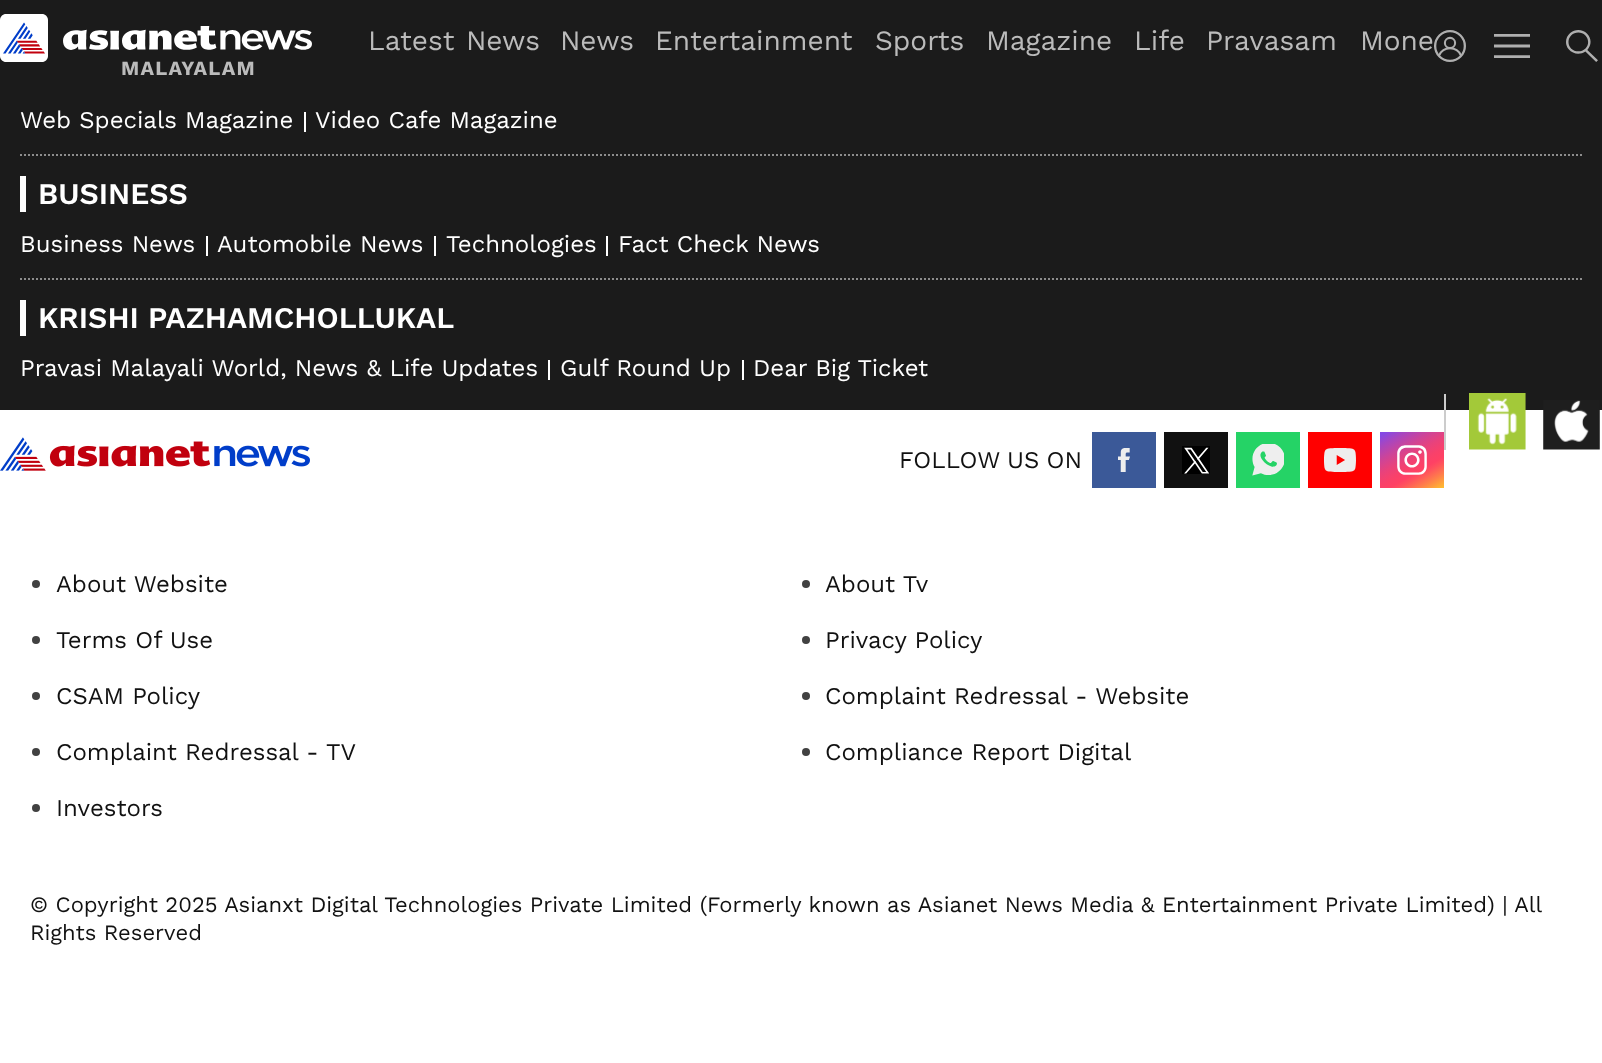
(async () => {
    const canvas = document.querySelector("canvas");
    canvas.width = 1602;
    canvas.height = 1063;
    const context = canvas.getContext("2d");
    context.miterLimit = 4;
    context.fontKerning = "normal";
    function write(s, x, y, font, color) {
        context.font = font;
        context.fillStyle = color;
        context.fillText(s, x, y);
    }
    function block(x, y, w, h, color) {
        context.fillStyle = color;
        context.fillRect(x, y, w, h);
    }
    async function photo(src, x, y, w, h) {
        const img = new Image();
        img.src = src;
        await img.decode();
        context.drawImage(img, x, y, w, h);
    }

    block(0, 0, 1602, 1063, "rgb(255, 255, 255)");
    block(0, 0, 1602, 410, "rgb(27, 27, 27)");
    context.wordSpacing = "2px";
    write("Latest News", 368, 50, "28px Work Sans", "rgb(187, 187, 187)");
    context.wordSpacing = "0px";
    write("News", 560, 50, "28px Work Sans", "rgb(187, 187, 187)");
    write("Entertainment", 655, 50, "28px Work Sans", "rgb(187, 187, 187)");
    write("Sports", 875, 50, "28px Work Sans", "rgb(187, 187, 187)");
    write("Magazine", 986, 50, "28px Work Sans", "rgb(187, 187, 187)");
    write("Life", 1134, 50, "28px Work Sans", "rgb(187, 187, 187)");
    write("Pravasam", 1206, 50, "28px Work Sans", "rgb(187, 187, 187)");
    write("Mone", 1360, 50, "28px Work Sans", "rgb(187, 187, 187)");
    await photo("media/1.png", 1434, 30, 32, 32);
    await photo("media/2.png", 1494, 34, 36, 24);
    await photo("media/3.png", 1566, 30, 32, 32);
    await photo("media/4.png", 0, 14, 312, 48);
    context.letterSpacing = "1.25px";
    write("MALAYALAM", 121, 75, "bold 20px Work Sans", "rgb(187, 187, 187)");
    context.beginPath();
    context.moveTo(20, 155);
    context.lineTo(1582, 155);
    context.strokeStyle = "rgb(141, 141, 141)";
    context.lineWidth = 2;
    context.setLineDash([2, 2]);
    context.stroke();
    context.letterSpacing = "0px";
    write("Web Specials Magazine", 20, 128, "24px Work Sans", "rgb(255, 255, 255)");
    block(304, 112, 2, 20, "rgb(255, 255, 255)");
    write("Video Cafe Magazine", 315, 128, "24px Work Sans", "rgb(255, 255, 255)");
    context.beginPath();
    context.moveTo(20, 279);
    context.lineTo(1582, 279);
    context.stroke();
    block(20, 176, 6, 36, "rgb(255, 255, 255)");
    write("BUSINESS", 38, 204, "600 30px Work Sans", "rgb(255, 255, 255)");
    write("Business News", 20, 252, "24px Work Sans", "rgb(255, 255, 255)");
    block(206, 236, 2, 20, "rgb(255, 255, 255)");
    write("Automobile News", 217, 252, "24px Work Sans", "rgb(255, 255, 255)");
    block(434, 236, 2, 20, "rgb(255, 255, 255)");
    write("Technologies", 446, 252, "24px Work Sans", "rgb(255, 255, 255)");
    block(606, 236, 2, 20, "rgb(255, 255, 255)");
    write("Fact Check News", 618, 252, "24px Work Sans", "rgb(255, 255, 255)");
    block(20, 300, 6, 36, "rgb(255, 255, 255)");
    write("KRISHI PAZHAMCHOLLUKAL", 38, 328, "600 30px Work Sans", "rgb(255, 255, 255)");
    write("Pravasi Malayali World, News & Life Updates", 20, 376, "24px Work Sans", "rgb(255, 255, 255)");
    block(548, 360, 2, 20, "rgb(255, 255, 255)");
    write("Gulf Round Up", 560, 376, "24px Work Sans", "rgb(255, 255, 255)");
    block(742, 360, 2, 20, "rgb(255, 255, 255)");
    write("Dear Big Ticket", 753, 376, "24px Work Sans", "rgb(255, 255, 255)");
    await photo("media/5.png", 0, 437, 310, 34);
    context.wordSpacing = "-1px";
    write("FOLLOW US ON", 899, 468, "24px Work Sans", "rgb(17, 17, 17)");
    block(1444, 394, 2, 56, "rgb(204, 204, 204)");
    await photo("media/6.png", 1469, 393, 57, 57);
    await photo("media/7.png", 1543, 400, 57, 50);
    block(1092, 432, 64, 56, "rgb(59, 89, 152)");
    await photo("media/8.png", 1118, 448, 12, 24);
    block(1164, 432, 64, 56, "rgb(17, 17, 17)");
    await photo("media/9.png", 1182, 446, 28, 28);
    block(1236, 432, 64, 56, "rgb(37, 211, 102)");
    await photo("media/10.png", 1252, 444, 32, 32);
    block(1308, 432, 64, 56, "rgb(255, 0, 0)");
    await photo("media/11.png", 1324, 448, 32, 24);
    await photo("media/12.png", 1380, 432, 64, 56);
    context.fillStyle = "rgb(65, 65, 65)";
    context.beginPath();
    context.arc(36, 584, 4, 0, Math.PI * 2);
    context.fill();
    context.wordSpacing = "0px";
    write("About Website", 56, 592, "24px Work Sans", "rgb(17, 17, 17)");
    context.fillStyle = "rgb(65, 65, 65)";
    context.beginPath();
    context.arc(806, 584, 4, 0, Math.PI * 2);
    context.fill();
    write("About Tv", 825, 592, "24px Work Sans", "rgb(17, 17, 17)");
    context.fillStyle = "rgb(65, 65, 65)";
    context.beginPath();
    context.arc(36, 640, 4, 0, Math.PI * 2);
    context.fill();
    write("Terms Of Use", 56, 648, "24px Work Sans", "rgb(17, 17, 17)");
    context.fillStyle = "rgb(65, 65, 65)";
    context.beginPath();
    context.arc(806, 640, 4, 0, Math.PI * 2);
    context.fill();
    write("Privacy Policy", 825, 648, "24px Work Sans", "rgb(17, 17, 17)");
    context.fillStyle = "rgb(65, 65, 65)";
    context.beginPath();
    context.arc(36, 696, 4, 0, Math.PI * 2);
    context.fill();
    write("CSAM Policy", 56, 704, "24px Work Sans", "rgb(17, 17, 17)");
    context.fillStyle = "rgb(65, 65, 65)";
    context.beginPath();
    context.arc(806, 696, 4, 0, Math.PI * 2);
    context.fill();
    write("Complaint Redressal - Website", 825, 704, "24px Work Sans", "rgb(17, 17, 17)");
    context.fillStyle = "rgb(65, 65, 65)";
    context.beginPath();
    context.arc(36, 752, 4, 0, Math.PI * 2);
    context.fill();
    write("Complaint Redressal - TV", 56, 760, "24px Work Sans", "rgb(17, 17, 17)");
    context.fillStyle = "rgb(65, 65, 65)";
    context.beginPath();
    context.arc(806, 752, 4, 0, Math.PI * 2);
    context.fill();
    write("Compliance Report Digital", 825, 760, "24px Work Sans", "rgb(17, 17, 17)");
    context.fillStyle = "rgb(65, 65, 65)";
    context.beginPath();
    context.arc(36, 808, 4, 0, Math.PI * 2);
    context.fill();
    write("Investors", 56, 816, "24px Work Sans", "rgb(17, 17, 17)");
    write("© Copyright 2025 Asianxt Digital Technologies Private Limited (Formerly known as Asianet News Media & Entertainment Private Limited) | All", 30, 912, "22px Work Sans", "rgb(17, 17, 17)");
    write("Rights Reserved", 30, 940, "22px Work Sans", "rgb(17, 17, 17)");
})();
